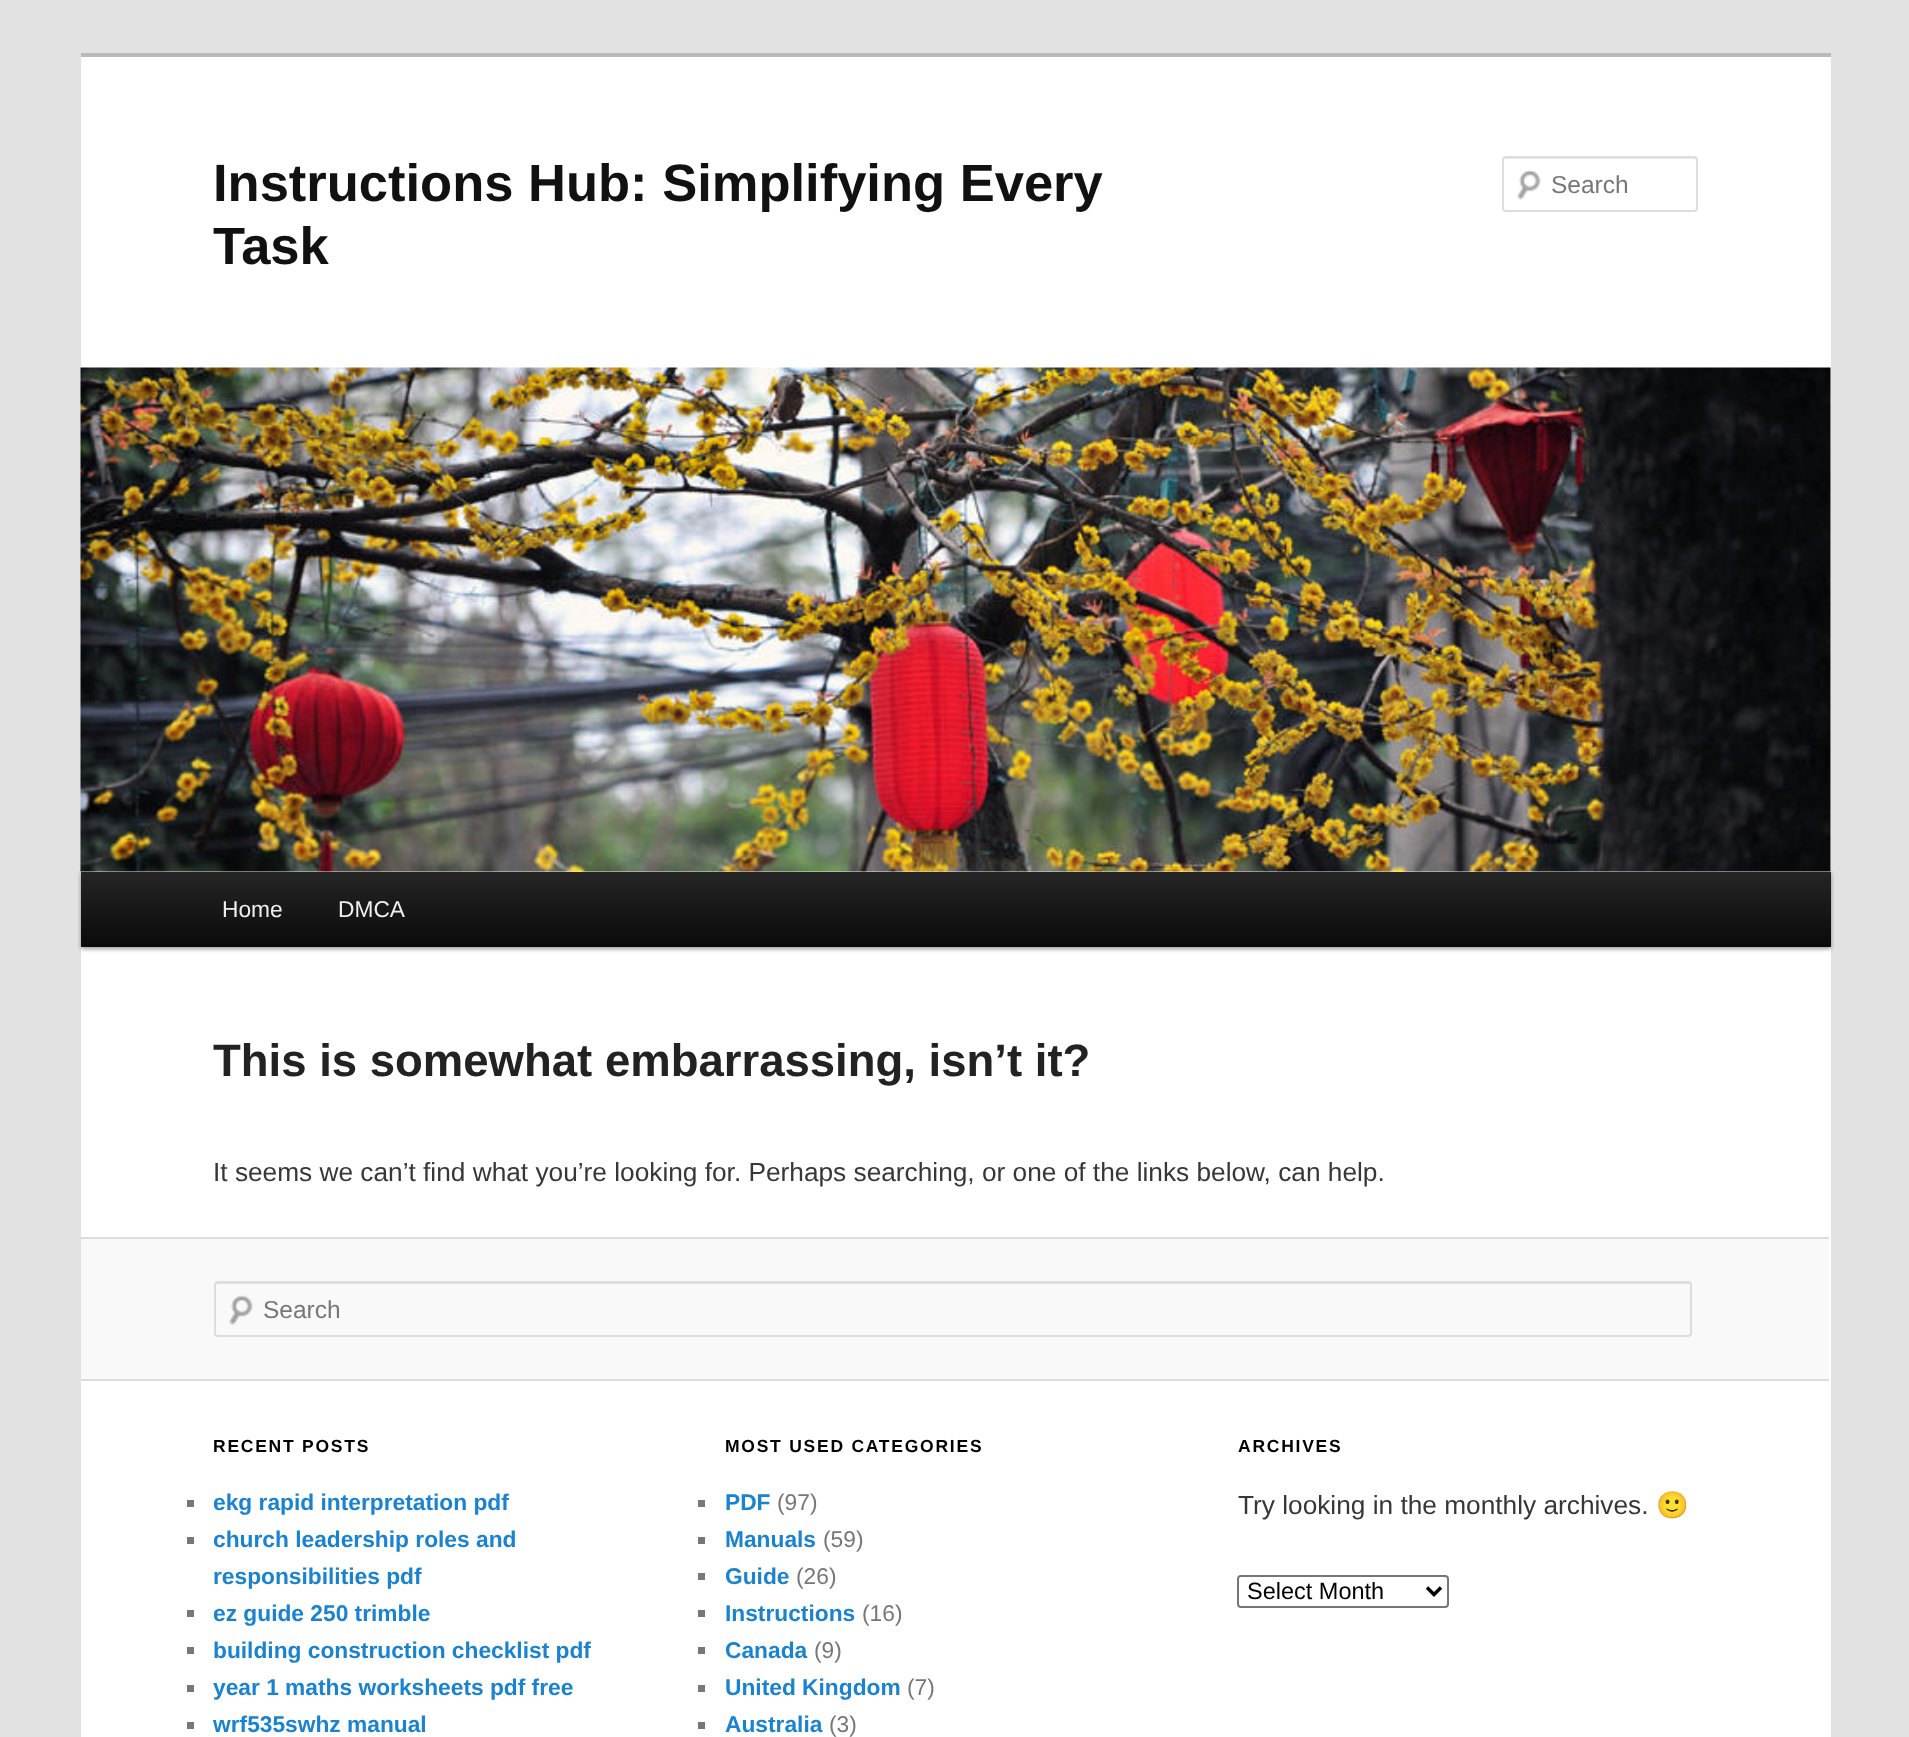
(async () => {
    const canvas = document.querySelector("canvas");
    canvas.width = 1909;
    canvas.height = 1737;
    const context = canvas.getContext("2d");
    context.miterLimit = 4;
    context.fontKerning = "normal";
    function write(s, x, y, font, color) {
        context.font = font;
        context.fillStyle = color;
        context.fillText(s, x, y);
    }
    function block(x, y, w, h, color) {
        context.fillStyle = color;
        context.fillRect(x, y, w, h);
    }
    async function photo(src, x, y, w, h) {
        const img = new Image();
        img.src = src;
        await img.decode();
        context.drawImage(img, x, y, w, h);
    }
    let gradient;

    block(0, 0, 1909, 1737, "rgb(226, 226, 226)");
    block(81, 57, 1750, 1680, "rgb(255, 255, 255)");
    block(81, 53, 1750, 4, "rgb(187, 187, 187)");
    write("Instructions Hub: Simplifying Every", 213, 201, "bold 52.5px Liberation Sans", "rgb(17, 17, 17)");
    write("Task", 213, 264, "bold 52.5px Liberation Sans", "rgb(17, 17, 17)");
    await photo("media/1.png", 1517, 170, 24, 30);
    context.fillStyle = "rgb(230, 230, 230)";
    context.beginPath();
    context.moveTo(1505, 159);
    context.lineTo(1694, 159);
    context.lineTo(1696, 160);
    context.lineTo(1696, 161);
    context.lineTo(1696, 160);
    context.bezierCurveTo(1696, 159, 1695, 158, 1694, 158);
    context.lineTo(1505, 158);
    context.bezierCurveTo(1504, 158, 1503, 159, 1503, 160);
    context.lineTo(1503, 161);
    context.bezierCurveTo(1503, 160, 1504, 159, 1505, 159);
    context.closePath();
    context.fill();
    context.beginPath();
    context.roundRect(1503, 157, 194, 54, 3);
    context.strokeStyle = "rgb(221, 221, 221)";
    context.lineWidth = 2;
    context.stroke();
    write("Search", 1551, 193, "24.5px Liberation Sans", "rgb(119, 119, 119)");
    context.fillStyle = "rgba(0, 0, 0, 0.4)";
    context.filter = "blur(2px)";
    context.beginPath();
    context.rect(81, 873, 1750, 76);
    context.fill();
    context.filter = "none";
    await photo("media/2.png", 80, 367, 1751, 505);
    gradient = context.createLinearGradient(956, 871, 956, 947);
    gradient.addColorStop(0, "rgb(37, 37, 37)");
    gradient.addColorStop(1, "rgb(10, 10, 10)");
    context.fillStyle = gradient;
    context.fillRect(81, 872, 1750, 75);
    write("Home", 222, 917, "22.75px Liberation Sans", "rgb(238, 238, 238)");
    write("DMCA", 338, 917, "22.75px Liberation Sans", "rgb(238, 238, 238)");
    write("This is somewhat embarrassing, isn’t it?", 213, 1076, "bold 45.5px Liberation Sans", "rgb(34, 34, 34)");
    write("It seems we can’t find what you’re looking for. Perhaps searching, or one of the links below, can help.", 213, 1181, "26.25px Liberation Sans", "rgb(55, 55, 55)");
    block(81, 1239, 1748, 140, "rgb(249, 249, 249)");
    block(81, 1237, 1748, 2, "rgb(221, 221, 221)");
    block(81, 1379, 1748, 2, "rgb(221, 221, 221)");
    await photo("media/3.png", 229, 1295, 24, 30);
    context.fillStyle = "rgb(224, 224, 224)";
    context.beginPath();
    context.moveTo(217, 1284);
    context.lineTo(1689, 1284);
    context.bezierCurveTo(1690, 1284, 1690, 1285, 1690, 1286);
    context.lineTo(1690, 1335);
    context.bezierCurveTo(1691, 1334, 1691, 1334, 1691, 1333);
    context.lineTo(1691, 1285);
    context.bezierCurveTo(1691, 1284, 1690, 1283, 1689, 1283);
    context.lineTo(217, 1283);
    context.bezierCurveTo(216, 1283, 215, 1284, 215, 1285);
    context.lineTo(215, 1286);
    context.bezierCurveTo(215, 1285, 216, 1284, 217, 1284);
    context.closePath();
    context.fill();
    context.beginPath();
    context.roundRect(215, 1282, 1476, 54, 3);
    context.stroke();
    write("Search", 263, 1318, "24.5px Liberation Sans", "rgb(119, 119, 119)");
    context.letterSpacing = "1.75px";
    write("RECENT POSTS", 213, 1452, "bold 17.5px Liberation Sans", "rgb(0, 0, 0)");
    block(187, 1500, 7, 7, "rgb(119, 119, 119)");
    context.letterSpacing = "0px";
    write("ekg rapid interpretation pdf", 213, 1510, "bold 22.75px Liberation Sans", "rgb(25, 130, 209)");
    block(187, 1537, 7, 7, "rgb(119, 119, 119)");
    write("church leadership roles and", 213, 1547, "bold 22.75px Liberation Sans", "rgb(25, 130, 209)");
    write("responsibilities pdf", 213, 1584, "bold 22.75px Liberation Sans", "rgb(25, 130, 209)");
    block(187, 1610, 7, 7, "rgb(119, 119, 119)");
    write("ez guide 250 trimble", 213, 1621, "bold 22.75px Liberation Sans", "rgb(25, 130, 209)");
    block(187, 1647, 7, 7, "rgb(119, 119, 119)");
    write("building construction checklist pdf", 213, 1658, "bold 22.75px Liberation Sans", "rgb(25, 130, 209)");
    block(187, 1685, 7, 7, "rgb(119, 119, 119)");
    write("year 1 maths worksheets pdf free", 213, 1695, "bold 22.75px Liberation Sans", "rgb(25, 130, 209)");
    block(187, 1722, 7, 7, "rgb(119, 119, 119)");
    write("wrf535swhz manual", 213, 1732, "bold 22.75px Liberation Sans", "rgb(25, 130, 209)");
    context.letterSpacing = "1.75px";
    write("MOST USED CATEGORIES", 725, 1452, "bold 17.5px Liberation Sans", "rgb(0, 0, 0)");
    block(698, 1500, 7, 7, "rgb(119, 119, 119)");
    context.letterSpacing = "0px";
    write("PDF", 725, 1510, "bold 22.75px Liberation Sans", "rgb(25, 130, 209)");
    write("(97)", 777, 1510, "22.75px Liberation Sans", "rgb(119, 119, 119)");
    block(698, 1537, 7, 7, "rgb(119, 119, 119)");
    write("Manuals", 725, 1547, "bold 22.75px Liberation Sans", "rgb(25, 130, 209)");
    write("(59)", 823, 1547, "22.75px Liberation Sans", "rgb(119, 119, 119)");
    block(698, 1573, 7, 7, "rgb(119, 119, 119)");
    write("Guide", 725, 1584, "bold 22.75px Liberation Sans", "rgb(25, 130, 209)");
    write("(26)", 796, 1584, "22.75px Liberation Sans", "rgb(119, 119, 119)");
    block(698, 1610, 7, 7, "rgb(119, 119, 119)");
    write("Instructions", 725, 1621, "bold 22.75px Liberation Sans", "rgb(25, 130, 209)");
    write("(16)", 862, 1621, "22.75px Liberation Sans", "rgb(119, 119, 119)");
    block(698, 1647, 7, 7, "rgb(119, 119, 119)");
    write("Canada", 725, 1658, "bold 22.75px Liberation Sans", "rgb(25, 130, 209)");
    write("(9)", 814, 1658, "22.75px Liberation Sans", "rgb(119, 119, 119)");
    block(698, 1685, 7, 7, "rgb(119, 119, 119)");
    write("United Kingdom", 725, 1695, "bold 22.75px Liberation Sans", "rgb(25, 130, 209)");
    write("(7)", 907, 1695, "22.75px Liberation Sans", "rgb(119, 119, 119)");
    block(698, 1722, 7, 7, "rgb(119, 119, 119)");
    write("Australia", 725, 1732, "bold 22.75px Liberation Sans", "rgb(25, 130, 209)");
    write("(3)", 829, 1732, "22.75px Liberation Sans", "rgb(119, 119, 119)");
    context.letterSpacing = "1.75px";
    write("ARCHIVES", 1238, 1452, "bold 17.5px Liberation Sans", "rgb(0, 0, 0)");
    context.letterSpacing = "0px";
    write("Try looking in the monthly archives.", 1238, 1514, "26.25px Liberation Sans", "rgb(55, 55, 55)");
    write("🙂", 1656, 1514, "26.25px Noto Color Emoji", "rgb(55, 55, 55)");
    context.beginPath();
    context.roundRect(1238, 1576, 210, 31, 3);
    context.strokeStyle = "rgb(118, 118, 118)";
    context.stroke();
    context.beginPath();
    context.moveTo(1427, 1587.5);
    context.lineTo(1434, 1594.5);
    context.lineTo(1441, 1587.5);
    context.strokeStyle = "rgb(0, 0, 0)";
    context.lineWidth = 3.5;
    context.stroke();
    write("Select Month", 1247, 1599, "23.5px Liberation Sans", "rgb(0, 0, 0)");
})();
